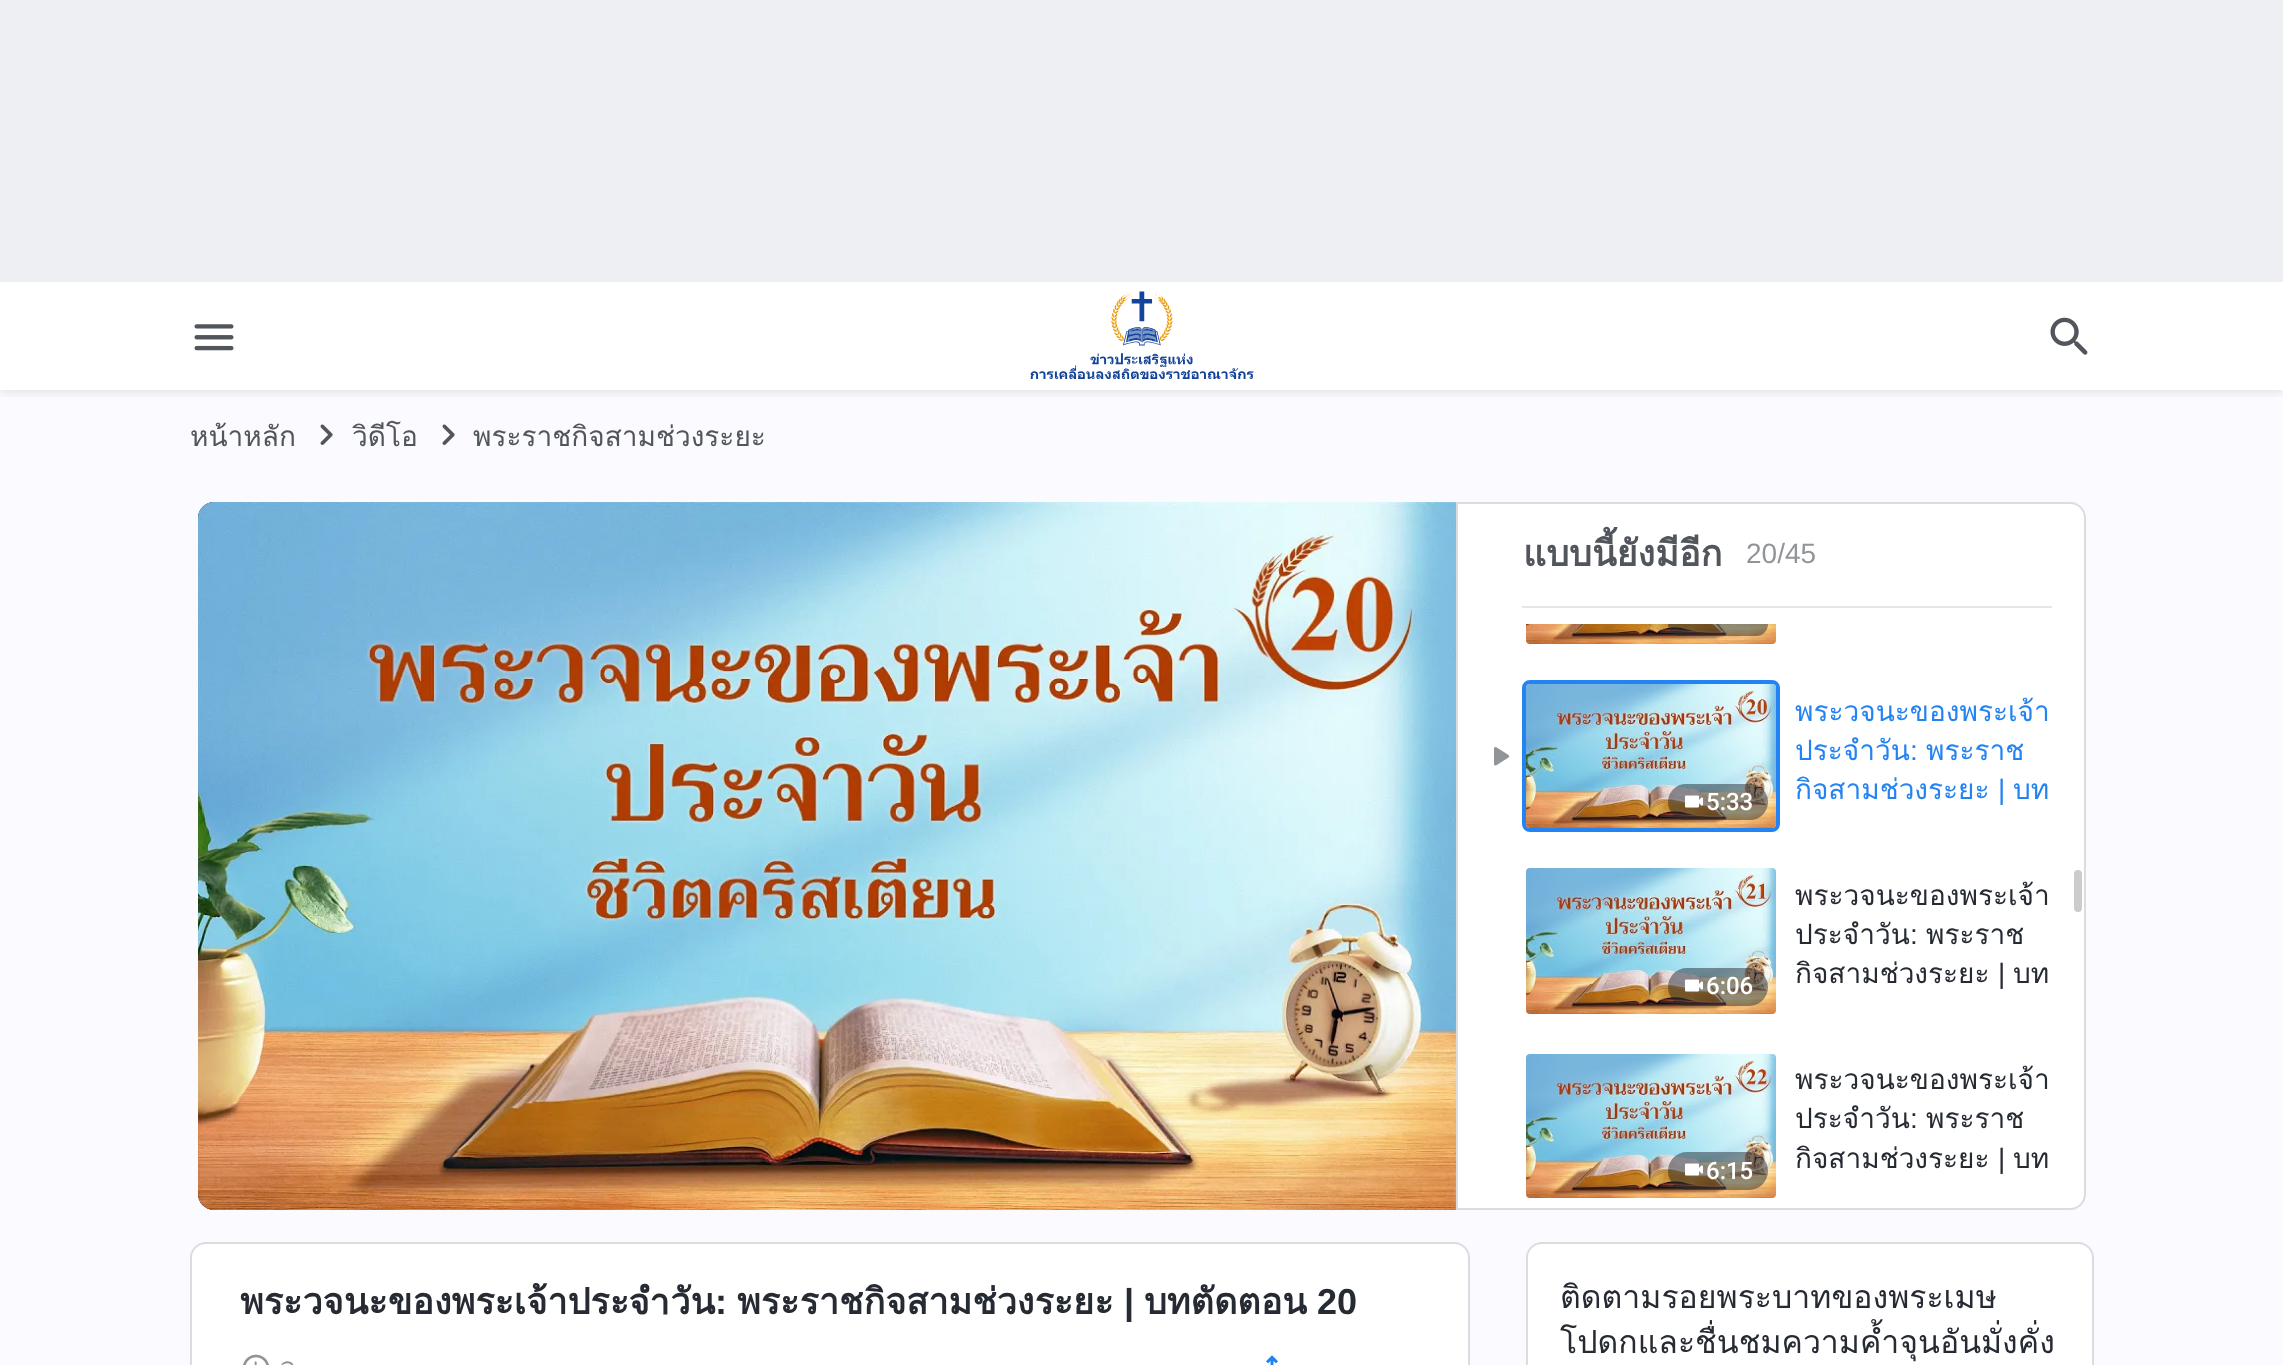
(async () => {
    const canvas = document.querySelector("canvas");
    canvas.width = 2283;
    canvas.height = 1365;
    const context = canvas.getContext("2d");
    context.miterLimit = 4;
    context.fontKerning = "normal";
    function write(s, x, y, font, color) {
        context.font = font;
        context.fillStyle = color;
        context.fillText(s, x, y);
    }
    function block(x, y, w, h, color) {
        context.fillStyle = color;
        context.fillRect(x, y, w, h);
    }
    function card(x, y, w, h, r, color) {
        context.fillStyle = color;
        context.beginPath();
        context.roundRect(x, y, w, h, r);
        context.fill();
    }
    async function photo(src, x, y, w, h) {
        const img = new Image();
        img.src = src;
        await img.decode();
        context.drawImage(img, x, y, w, h);
    }

    block(0, 0, 2283, 1365, "rgb(250, 250, 255)");
    block(0, 282, 2283, 108, "rgb(255, 255, 255)");
    context.save();
    context.beginPath();
    context.rect(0, 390, 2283, 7);
    context.clip();
    context.fillStyle = "rgba(0, 0, 0, 0.11)";
    context.filter = "blur(6px)";
    context.beginPath();
    context.rect(0, 284, 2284, 108);
    context.fill();
    context.filter = "none";
    context.restore();
    block(0, 0, 2283, 282, "rgb(237, 239, 242)");
    await photo("media/1.png", 194, 324, 40, 27);
    await photo("media/2.png", 1030, 291, 224, 88);
    await photo("media/3.png", 2050, 317, 38, 38);
    write("หน้าหลัก", 190, 446, "28px Loma", "rgb(81, 85, 92)");
    await photo("media/4.png", 320, 424, 13, 21);
    write("วิดีโอ", 352, 446, "28px Loma", "rgb(81, 85, 92)");
    await photo("media/4.png", 442, 424, 13, 21);
    write("พระราชกิจสามช่วงระยะ", 473, 446, "28px Loma", "rgb(81, 85, 92)");
    context.fillStyle = "rgb(18, 18, 18)";
    context.beginPath();
    context.roundRect(198, 502, 1258, 708, [16, 0, 0, 16]);
    context.fill();
    await photo("media/5.png", 198, 502, 1258, 708);
    context.fillStyle = "rgb(255, 255, 255)";
    context.beginPath();
    context.roundRect(1457, 503, 628, 706, [0, 15, 15, 0]);
    context.fill();
    context.strokeStyle = "rgb(218, 220, 224)";
    context.lineWidth = 2;
    context.stroke();
    block(1522, 606, 530, 2, "rgb(230, 230, 230)");
    write("แบบนี้ยังมีอีก", 1523, 566, "bold 36px Loma", "rgb(81, 85, 92)");
    write("20/45", 1746, 563, "28px Liberation Sans", "rgb(145, 148, 153)");
    await photo("media/6.png", 1526, 624, 250, 20);
    context.fillStyle = "rgba(38, 43, 51, 0.5)";
    context.beginPath();
    context.roundRect(1668, 624, 100, 12, [0, 0, 18, 18]);
    context.fill();
    await photo("media/7.png", 1494, 747, 16, 19);
    context.beginPath();
    context.roundRect(1524, 682, 254, 148, 6);
    context.strokeStyle = "rgb(36, 131, 242)";
    context.lineWidth = 4;
    context.stroke();
    await photo("media/8.png", 1526, 684, 250, 144);
    card(1668, 784, 100, 36, 18, "rgba(38, 43, 51, 0.5)");
    await photo("media/9.png", 1685, 795, 18, 13);
    write("5:33", 1706, 810, "500 24px Roboto", "rgb(255, 255, 255)");
    write("พระวจนะของพระเจ้า", 1795, 721, "28px Loma", "rgb(36, 131, 242)");
    write("ประจำวัน", 1795, 760, "28px Loma", "rgb(36, 131, 242)");
    write(":", 1910, 760, "28px Liberation Sans", "rgb(36, 131, 242)");
    write("พระราช", 1926, 760, "28px Loma", "rgb(36, 131, 242)");
    context.save();
    context.beginPath();
    context.rect(1796, 692, 256, 118);
    context.clip();
    write("กิจสามช่วงระยะ", 1795, 799, "28px Loma", "rgb(36, 131, 242)");
    context.restore();
    write("|", 1998, 799, "28px Liberation Sans", "rgb(36, 131, 242)");
    write("บท", 2013, 799, "28px Loma", "rgb(36, 131, 242)");
    await photo("media/10.png", 1526, 868, 250, 146);
    card(1668, 968, 100, 38, 19, "rgba(38, 43, 51, 0.5)");
    await photo("media/11.png", 1685, 979, 18, 13);
    write("6:06", 1706, 994, "500 24px Roboto", "rgb(255, 255, 255)");
    write("พระวจนะของพระเจ้า", 1795, 905, "28px Loma", "rgb(38, 43, 51)");
    write("ประจำวัน", 1795, 944, "28px Loma", "rgb(38, 43, 51)");
    write(":", 1910, 944, "28px Liberation Sans", "rgb(38, 43, 51)");
    write("พระราช", 1926, 944, "28px Loma", "rgb(38, 43, 51)");
    context.save();
    context.beginPath();
    context.rect(1796, 876, 256, 118);
    context.clip();
    write("กิจสามช่วงระยะ", 1795, 983, "28px Loma", "rgb(38, 43, 51)");
    context.restore();
    write("|", 1998, 983, "28px Liberation Sans", "rgb(38, 43, 51)");
    write("บท", 2013, 983, "28px Loma", "rgb(38, 43, 51)");
    await photo("media/12.png", 1526, 1054, 250, 144);
    card(1668, 1152, 100, 38, 19, "rgba(38, 43, 51, 0.5)");
    await photo("media/13.png", 1685, 1163, 18, 13);
    write("6:15", 1706, 1179, "500 24px Roboto", "rgb(255, 255, 255)");
    write("พระวจนะของพระเจ้า", 1795, 1089, "28px Loma", "rgb(38, 43, 51)");
    write("ประจำวัน", 1795, 1128, "28px Loma", "rgb(38, 43, 51)");
    write(":", 1910, 1128, "28px Liberation Sans", "rgb(38, 43, 51)");
    write("พระราช", 1926, 1128, "28px Loma", "rgb(38, 43, 51)");
    context.save();
    context.beginPath();
    context.rect(1796, 1062, 256, 116);
    context.clip();
    write("กิจสามช่วงระยะ", 1795, 1168, "28px Loma", "rgb(38, 43, 51)");
    context.restore();
    write("|", 1998, 1168, "28px Liberation Sans", "rgb(38, 43, 51)");
    write("บท", 2013, 1168, "28px Loma", "rgb(38, 43, 51)");
    card(2074, 870, 8, 42, 4, "rgb(204, 204, 204)");
    context.fillStyle = "rgb(255, 255, 255)";
    context.beginPath();
    context.roundRect(191, 1243, 1278, 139, 15);
    context.fill();
    context.strokeStyle = "rgb(218, 220, 224)";
    context.lineWidth = 2;
    context.stroke();
    write("พระวจนะของพระเจ้าประจำวัน", 240, 1314, "bold 36px Loma", "rgb(38, 43, 51)");
    write(":", 715, 1314, "bold 36px Liberation Sans", "rgb(38, 43, 51)");
    write("พระราชกิจสามช่วงระยะ", 737, 1314, "bold 36px Loma", "rgb(38, 43, 51)");
    write("|", 1124, 1314, "bold 36px Liberation Sans", "rgb(38, 43, 51)");
    write("บทตัดตอน", 1144, 1314, "bold 36px Loma", "rgb(38, 43, 51)");
    write("20", 1317, 1314, "bold 36px Liberation Sans", "rgb(38, 43, 51)");
    await photo("media/14.png", 243, 1354, 26, 11);
    write("ว", 280, 1377, "28px Loma", "rgb(145, 148, 153)");
    await photo("media/15.png", 1266, 1355, 12, 10);
    context.fillStyle = "rgb(255, 255, 255)";
    context.beginPath();
    context.roundRect(1527, 1243, 566, 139, 15);
    context.fill();
    context.stroke();
    write("ติดตามรอยพระบาทของพระเมษ", 1560, 1308, "32px Loma", "rgb(38, 43, 51)");
    write("โปดกและชื่นชมความค้ำจุนอันมั่งคั่ง", 1560, 1353, "32px Loma", "rgb(38, 43, 51)");
})();
